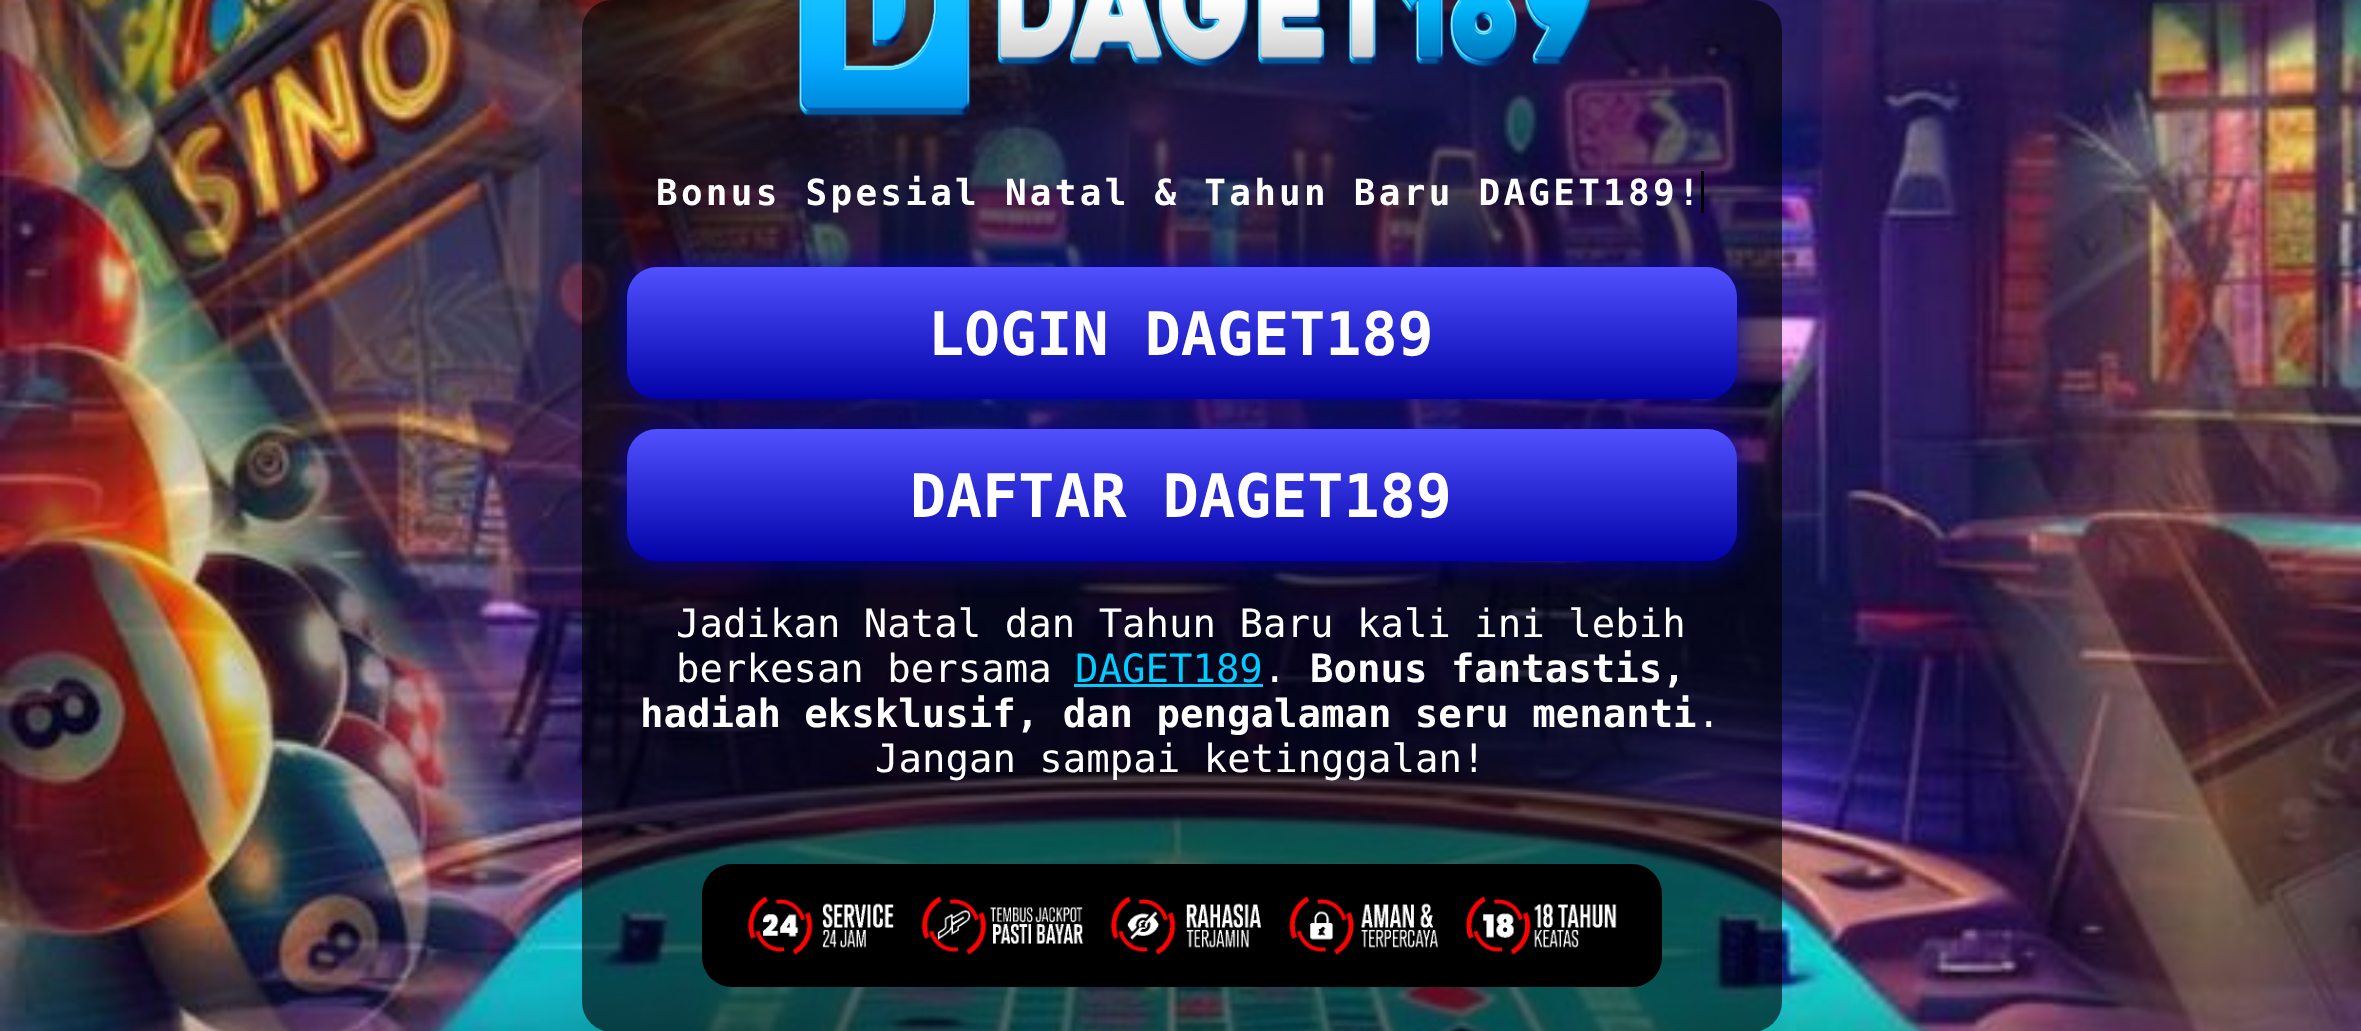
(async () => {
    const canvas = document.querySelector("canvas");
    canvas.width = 2361;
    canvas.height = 1031;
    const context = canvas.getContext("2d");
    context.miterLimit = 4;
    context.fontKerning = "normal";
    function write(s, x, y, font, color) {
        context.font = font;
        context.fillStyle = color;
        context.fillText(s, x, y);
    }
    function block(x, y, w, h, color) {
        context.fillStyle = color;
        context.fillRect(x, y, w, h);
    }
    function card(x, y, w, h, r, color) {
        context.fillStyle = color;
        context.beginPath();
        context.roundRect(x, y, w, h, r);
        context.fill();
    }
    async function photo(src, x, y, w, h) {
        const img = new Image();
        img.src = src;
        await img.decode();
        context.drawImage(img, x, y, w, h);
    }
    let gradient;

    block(0, 0, 2361, 1031, "rgb(255, 255, 255)");
    await photo("media/1.png", 0, 0, 2361, 1031);
    card(582, 0, 1200, 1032, 30, "rgba(0, 0, 0, 0.6)");
    await photo("media/2.png", 785, 0, 809, 132);
    block(1701, 171, 3, 42, "rgb(0, 0, 0)");
    context.letterSpacing = "3.25px";
    write("Bonus Spesial Natal & Tahun Baru DAGET189!", 656, 205, "bold 36px DejaVu Sans Mono", "rgb(255, 255, 255)");
    context.fillStyle = "rgb(2, 2, 168)";
    context.filter = "blur(15px)";
    context.beginPath();
    context.roundRect(627, 267, 1110, 132, 30);
    context.fill();
    context.filter = "none";
    gradient = context.createLinearGradient(1182, 267, 1182, 399);
    gradient.addColorStop(0, "rgb(81, 81, 255)");
    gradient.addColorStop(1, "rgb(2, 2, 168)");
    context.fillStyle = gradient;
    context.beginPath();
    context.roundRect(627, 267, 1110, 132, 30);
    context.fill();
    context.letterSpacing = "0px";
    write("LOGIN DAGET189", 928, 355, "bold 60px DejaVu Sans Mono", "rgb(255, 255, 255)");
    context.fillStyle = "rgb(2, 2, 168)";
    context.filter = "blur(15px)";
    context.beginPath();
    context.roundRect(627, 429, 1110, 132, 30);
    context.fill();
    context.filter = "none";
    gradient = context.createLinearGradient(1182, 429, 1182, 561);
    gradient.addColorStop(0, "rgb(81, 81, 255)");
    gradient.addColorStop(1, "rgb(2, 2, 168)");
    context.fillStyle = gradient;
    context.beginPath();
    context.roundRect(627, 429, 1110, 132, 30);
    context.fill();
    write("DAFTAR DAGET189", 910, 517, "bold 60px DejaVu Sans Mono", "rgb(255, 255, 255)");
    write("Jadikan Natal dan Tahun Baru kali ini lebih", 676, 637, "39px DejaVu Sans Mono", "rgb(255, 255, 255)");
    write("berkesan bersama", 676, 682, "39px DejaVu Sans Mono", "rgb(255, 255, 255)");
    write("DAGET189", 1075, 682, "39px DejaVu Sans Mono", "rgb(0, 204, 255)");
    block(1074, 684, 189, 3, "rgb(0, 204, 255)");
    write(".", 1263, 682, "39px DejaVu Sans Mono", "rgb(255, 255, 255)");
    write("Bonus fantastis,", 1310, 682, "bold 39px DejaVu Sans Mono", "rgb(255, 255, 255)");
    write("hadiah eksklusif, dan pengalaman seru menanti", 640, 727, "bold 39px DejaVu Sans Mono", "rgb(255, 255, 255)");
    write(".", 1697, 727, "39px DejaVu Sans Mono", "rgb(255, 255, 255)");
    write("Jangan sampai ketinggalan!", 875, 772, "39px DejaVu Sans Mono", "rgb(255, 255, 255)");
    card(702, 864, 960, 123, 30, "rgb(0, 0, 0)");
    await photo("media/3.png", 747, 896, 870, 59);
})();
